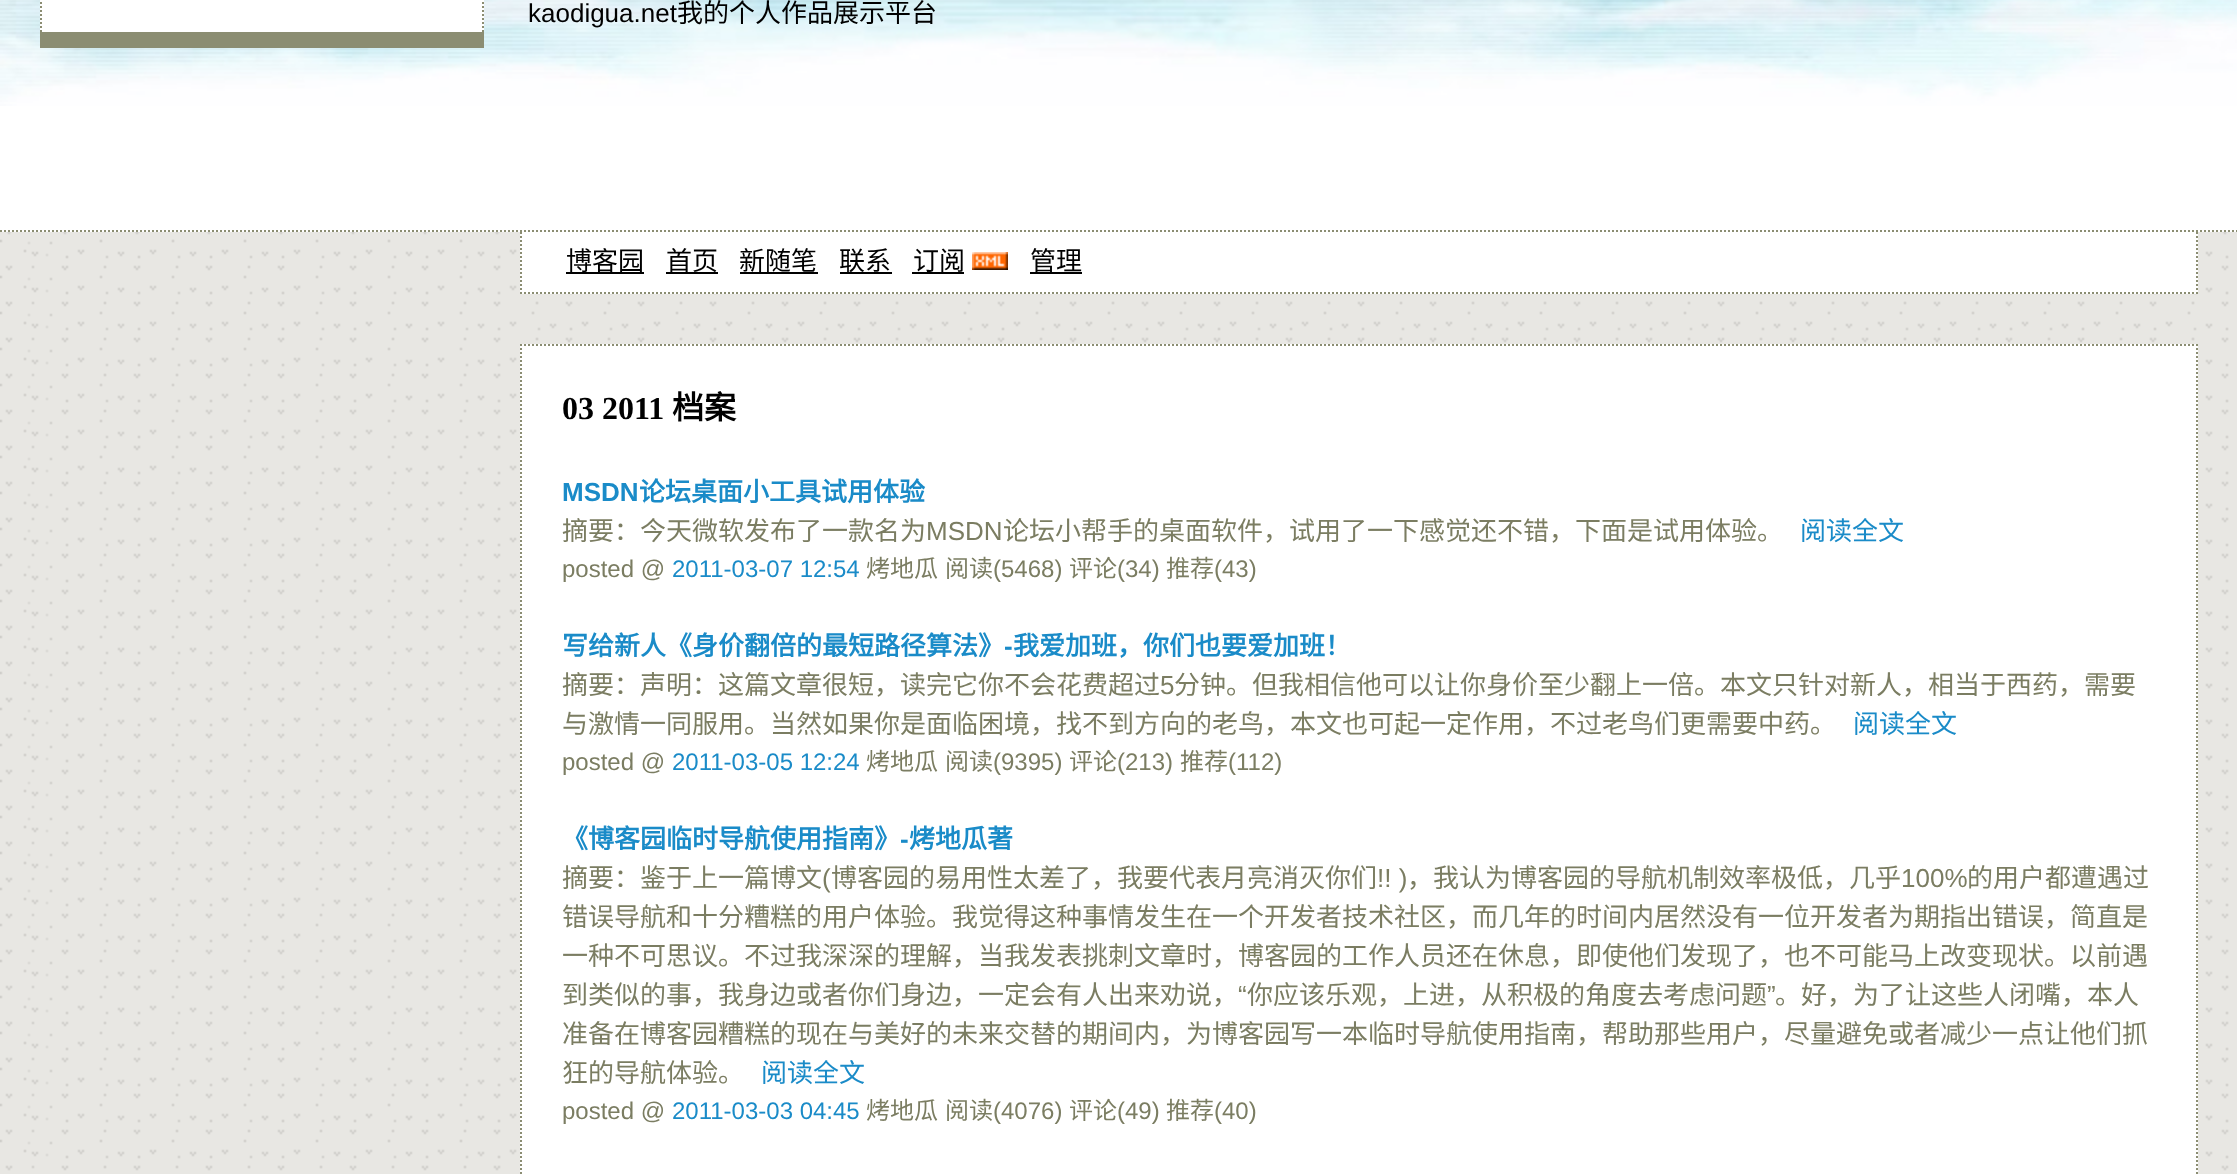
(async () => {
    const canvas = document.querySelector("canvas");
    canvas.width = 2237;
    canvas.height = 1174;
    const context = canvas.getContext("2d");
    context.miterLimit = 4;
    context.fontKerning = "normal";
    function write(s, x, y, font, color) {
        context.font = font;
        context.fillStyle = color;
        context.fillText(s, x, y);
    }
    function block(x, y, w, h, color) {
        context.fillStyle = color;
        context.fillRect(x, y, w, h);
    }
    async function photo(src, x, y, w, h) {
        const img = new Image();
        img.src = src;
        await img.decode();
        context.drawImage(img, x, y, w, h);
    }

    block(0, 0, 2237, 1174, "rgb(255, 255, 255)");
    await photo("media/1.png", 0, 232, 2237, 942);
    await photo("media/2.png", 0, 0, 2237, 106);
    block(40, 0, 444, 32, "rgb(255, 255, 255)");
    context.beginPath();
    context.moveTo(483, -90);
    context.lineTo(483, 48);
    context.strokeStyle = "rgb(139, 141, 114)";
    context.lineWidth = 2;
    context.setLineDash([2, 2]);
    context.stroke();
    block(40, 32, 444, 16, "rgb(139, 141, 114)");
    context.beginPath();
    context.moveTo(41, -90);
    context.lineTo(41, 48);
    context.stroke();
    context.beginPath();
    context.moveTo(0, 231);
    context.lineTo(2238, 231);
    context.stroke();
    write("kaodigua.net", 528, 22, "26px Liberation Sans", "rgb(0, 0, 0)");
    write("我的个人作品展示平台", 677, 22, "26px Noto Sans CJK SC", "rgb(0, 0, 0)");
    block(520, 232, 1678, 62, "rgb(255, 255, 255)");
    context.beginPath();
    context.moveTo(2197, 232);
    context.lineTo(2197, 294);
    context.stroke();
    context.beginPath();
    context.moveTo(520, 293);
    context.lineTo(2198, 293);
    context.stroke();
    context.beginPath();
    context.moveTo(521, 232);
    context.lineTo(521, 294);
    context.stroke();
    block(566, 272, 78, 2, "rgb(0, 0, 0)");
    write("博客园", 566, 270, "26px Noto Sans CJK SC", "rgb(0, 0, 0)");
    block(666, 272, 52, 2, "rgb(0, 0, 0)");
    write("首页", 666, 270, "26px Noto Sans CJK SC", "rgb(0, 0, 0)");
    block(740, 272, 78, 2, "rgb(0, 0, 0)");
    write("新随笔", 739, 270, "26px Noto Sans CJK SC", "rgb(0, 0, 0)");
    block(840, 272, 52, 2, "rgb(0, 0, 0)");
    write("联系", 839, 270, "26px Noto Sans CJK SC", "rgb(0, 0, 0)");
    block(912, 272, 52, 2, "rgb(0, 0, 0)");
    write("订阅", 913, 270, "26px Noto Sans CJK SC", "rgb(0, 0, 0)");
    await photo("media/3.png", 972, 252, 36, 18);
    block(1030, 272, 52, 2, "rgb(0, 0, 0)");
    write("管理", 1030, 270, "26px Noto Sans CJK SC", "rgb(0, 0, 0)");
    block(520, 344, 1678, 830, "rgb(255, 255, 255)");
    context.beginPath();
    context.moveTo(520, 345);
    context.lineTo(2198, 345);
    context.stroke();
    context.beginPath();
    context.moveTo(2197, 344);
    context.lineTo(2197, 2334);
    context.stroke();
    context.beginPath();
    context.moveTo(521, 344);
    context.lineTo(521, 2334);
    context.stroke();
    write("03 2011", 562, 419, "bold 32px Liberation Serif", "rgb(0, 0, 0)");
    write("档案", 672, 419, "bold 32px Noto Sans CJK SC", "rgb(0, 0, 0)");
    write("MSDN", 562, 501, "bold 26px Liberation Sans", "rgb(26, 139, 200)");
    write("论坛桌面小工具试用体验", 639, 501, "bold 26px Noto Sans CJK SC", "rgb(26, 139, 200)");
    write("摘要：今天微软发布了一款名为", 562, 540, "26px Noto Sans CJK SC", "rgb(123, 125, 98)");
    write("MSDN", 926, 540, "26px Liberation Sans", "rgb(123, 125, 98)");
    write("论坛小帮手的桌面软件，试用了一下感觉还不错，下面是试用体验。", 1003, 540, "26px Noto Sans CJK SC", "rgb(123, 125, 98)");
    write("阅读全文", 1800, 540, "26px Noto Sans CJK SC", "rgb(26, 139, 200)");
    write("posted @", 562, 577, "24px Liberation Sans", "rgb(123, 125, 98)");
    write("2011-03-07 12:54", 672, 577, "24px Liberation Sans", "rgb(26, 139, 200)");
    write("烤地瓜", 866, 577, "24px Noto Sans CJK SC", "rgb(123, 125, 98)");
    write("阅读", 945, 577, "24px Noto Sans CJK SC", "rgb(123, 125, 98)");
    write("(5468)", 993, 577, "24px Liberation Sans", "rgb(123, 125, 98)");
    write("评论", 1069, 577, "24px Noto Sans CJK SC", "rgb(123, 125, 98)");
    write("(34)", 1117, 577, "24px Liberation Sans", "rgb(123, 125, 98)");
    write("推荐", 1166, 577, "24px Noto Sans CJK SC", "rgb(123, 125, 98)");
    write("(43)", 1214, 577, "24px Liberation Sans", "rgb(123, 125, 98)");
    write("写给新人《身价翻倍的最短路径算法》", 562, 655, "bold 26px Noto Sans CJK SC", "rgb(26, 139, 200)");
    write("-", 1004, 655, "bold 26px Liberation Sans", "rgb(26, 139, 200)");
    write("我爱加班，你们也要爱加班！", 1013, 655, "bold 26px Noto Sans CJK SC", "rgb(26, 139, 200)");
    write("摘要：声明：这篇文章很短，读完它你不会花费超过", 562, 694, "26px Noto Sans CJK SC", "rgb(123, 125, 98)");
    write("5", 1160, 694, "26px Liberation Sans", "rgb(123, 125, 98)");
    write("分钟。但我相信他可以让你身价至少翻上一倍。本文只针对新人，相当于西药，需要", 1174, 694, "26px Noto Sans CJK SC", "rgb(123, 125, 98)");
    write("与激情一同服用。当然如果你是面临困境，找不到方向的老鸟，本文也可起一定作用，不过老鸟们更需要中药。", 562, 733, "26px Noto Sans CJK SC", "rgb(123, 125, 98)");
    write("阅读全文", 1853, 733, "26px Noto Sans CJK SC", "rgb(26, 139, 200)");
    write("posted @", 562, 770, "24px Liberation Sans", "rgb(123, 125, 98)");
    write("2011-03-05 12:24", 672, 770, "24px Liberation Sans", "rgb(26, 139, 200)");
    write("烤地瓜", 866, 770, "24px Noto Sans CJK SC", "rgb(123, 125, 98)");
    write("阅读", 945, 770, "24px Noto Sans CJK SC", "rgb(123, 125, 98)");
    write("(9395)", 993, 770, "24px Liberation Sans", "rgb(123, 125, 98)");
    write("评论", 1069, 770, "24px Noto Sans CJK SC", "rgb(123, 125, 98)");
    write("(213)", 1117, 770, "24px Liberation Sans", "rgb(123, 125, 98)");
    write("推荐", 1180, 770, "24px Noto Sans CJK SC", "rgb(123, 125, 98)");
    write("(112)", 1228, 770, "24px Liberation Sans", "rgb(123, 125, 98)");
    write("《博客园临时导航使用指南》", 562, 848, "bold 26px Noto Sans CJK SC", "rgb(26, 139, 200)");
    write("-", 900, 848, "bold 26px Liberation Sans", "rgb(26, 139, 200)");
    write("烤地瓜著", 909, 848, "bold 26px Noto Sans CJK SC", "rgb(26, 139, 200)");
    write("摘要：鉴于上一篇博文", 562, 887, "26px Noto Sans CJK SC", "rgb(123, 125, 98)");
    write("(", 822, 887, "26px Liberation Sans", "rgb(123, 125, 98)");
    write("博客园的易用性太差了，我要代表月亮消灭你们", 831, 887, "26px Noto Sans CJK SC", "rgb(123, 125, 98)");
    write("!! )", 1377, 887, "26px Liberation Sans", "rgb(123, 125, 98)");
    write("，我认为博客园的导航机制效率极低，几乎", 1407, 887, "26px Noto Sans CJK SC", "rgb(123, 125, 98)");
    write("100%", 1901, 887, "26px Liberation Sans", "rgb(123, 125, 98)");
    write("的用户都遭遇过", 1967, 887, "26px Noto Sans CJK SC", "rgb(123, 125, 98)");
    write("错误导航和十分糟糕的用户体验。我觉得这种事情发生在一个开发者技术社区，而几年的时间内居然没有一位开发者为期指出错误，简直是", 562, 926, "26px Noto Sans CJK SC", "rgb(123, 125, 98)");
    write("一种不可思议。不过我深深的理解，当我发表挑刺文章时，博客园的工作人员还在休息，即使他们发现了，也不可能马上改变现状。以前遇", 562, 965, "26px Noto Sans CJK SC", "rgb(123, 125, 98)");
    write("到类似的事，我身边或者你们身边，一定会有人出来劝说，", 562, 1004, "26px Noto Sans CJK SC", "rgb(123, 125, 98)");
    write("“", 1238, 1004, "26px Liberation Sans", "rgb(123, 125, 98)");
    write("你应该乐观，上进，从积极的角度去考虑问题", 1247, 1004, "26px Noto Sans CJK SC", "rgb(123, 125, 98)");
    write("”", 1767, 1004, "26px Liberation Sans", "rgb(123, 125, 98)");
    write("。好，为了让这些人闭嘴，本人", 1775, 1004, "26px Noto Sans CJK SC", "rgb(123, 125, 98)");
    write("准备在博客园糟糕的现在与美好的未来交替的期间内，为博客园写一本临时导航使用指南，帮助那些用户，尽量避免或者减少一点让他们抓", 562, 1043, "26px Noto Sans CJK SC", "rgb(123, 125, 98)");
    write("狂的导航体验。", 562, 1082, "26px Noto Sans CJK SC", "rgb(123, 125, 98)");
    write("阅读全文", 761, 1082, "26px Noto Sans CJK SC", "rgb(26, 139, 200)");
    write("posted @", 562, 1119, "24px Liberation Sans", "rgb(123, 125, 98)");
    write("2011-03-03 04:45", 672, 1119, "24px Liberation Sans", "rgb(26, 139, 200)");
    write("烤地瓜", 866, 1119, "24px Noto Sans CJK SC", "rgb(123, 125, 98)");
    write("阅读", 945, 1119, "24px Noto Sans CJK SC", "rgb(123, 125, 98)");
    write("(4076)", 993, 1119, "24px Liberation Sans", "rgb(123, 125, 98)");
    write("评论", 1069, 1119, "24px Noto Sans CJK SC", "rgb(123, 125, 98)");
    write("(49)", 1117, 1119, "24px Liberation Sans", "rgb(123, 125, 98)");
    write("推荐", 1166, 1119, "24px Noto Sans CJK SC", "rgb(123, 125, 98)");
    write("(40)", 1214, 1119, "24px Liberation Sans", "rgb(123, 125, 98)");
})();
